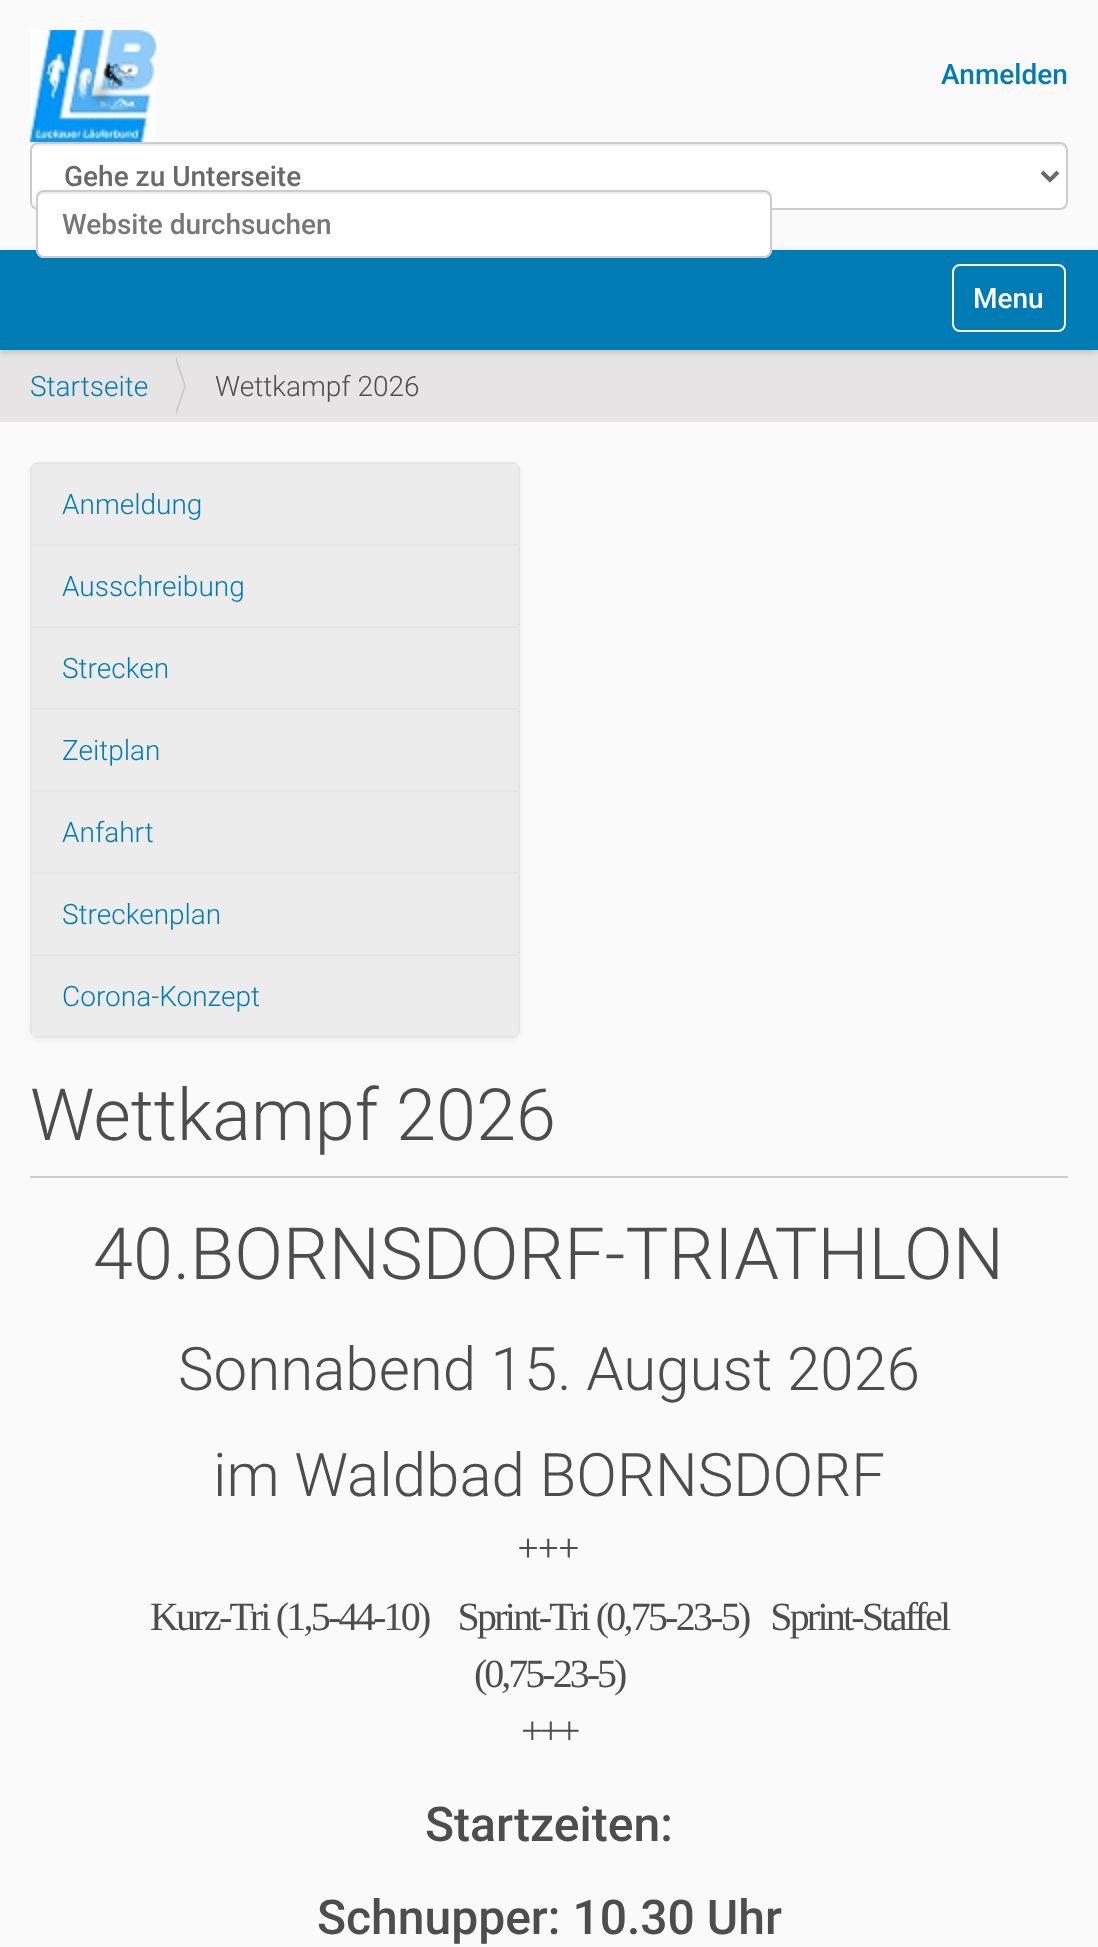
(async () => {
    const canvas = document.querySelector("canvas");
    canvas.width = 1098;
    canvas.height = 1947;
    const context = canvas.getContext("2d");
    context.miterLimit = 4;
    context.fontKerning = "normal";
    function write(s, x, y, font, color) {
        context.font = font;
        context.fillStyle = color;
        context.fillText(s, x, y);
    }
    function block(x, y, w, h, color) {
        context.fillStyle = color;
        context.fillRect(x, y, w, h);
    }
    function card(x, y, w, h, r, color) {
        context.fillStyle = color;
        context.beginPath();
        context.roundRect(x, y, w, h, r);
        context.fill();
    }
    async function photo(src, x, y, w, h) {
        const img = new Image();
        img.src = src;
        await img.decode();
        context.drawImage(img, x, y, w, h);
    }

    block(0, 0, 1098, 1947, "rgb(250, 250, 250)");
    await photo("media/1.png", 30, 30, 126, 112);
    write("Anmelden", 941, 84, "500 28px Roboto", "rgb(0, 123, 179)");
    card(30, 142, 1038, 68, 8, "rgb(255, 255, 255)");
    context.fillStyle = "rgb(236, 236, 236)";
    context.beginPath();
    context.moveTo(38, 146);
    context.lineTo(1060, 146);
    context.bezierCurveTo(1063, 146, 1066, 149, 1066, 152);
    context.lineTo(1066, 150);
    context.bezierCurveTo(1066, 147, 1063, 144, 1060, 144);
    context.lineTo(38, 144);
    context.bezierCurveTo(35, 144, 32, 147, 32, 150);
    context.lineTo(32, 152);
    context.bezierCurveTo(32, 149, 35, 146, 38, 146);
    context.closePath();
    context.fill();
    context.beginPath();
    context.roundRect(31, 143, 1036, 66, 7);
    context.strokeStyle = "rgb(204, 204, 204)";
    context.lineWidth = 2;
    context.stroke();
    context.beginPath();
    context.moveTo(1042, 172);
    context.lineTo(1050, 180);
    context.lineTo(1058, 172);
    context.strokeStyle = "rgb(105, 105, 105)";
    context.lineWidth = 4;
    context.stroke();
    write("Gehe zu Unterseite", 64, 186, "500 28px Roboto", "rgb(105, 105, 105)");
    block(0, 350, 1098, 72, "rgb(230, 228, 228)");
    context.fillStyle = "rgba(0, 0, 0, 0.17)";
    context.filter = "blur(3px)";
    context.beginPath();
    context.rect(0, 252, 1098, 100);
    context.fill();
    context.filter = "none";
    block(0, 250, 1098, 100, "rgb(0, 123, 179)");
    card(36, 190, 736, 68, 8, "rgb(255, 255, 255)");
    context.fillStyle = "rgb(236, 236, 236)";
    context.beginPath();
    context.moveTo(44, 194);
    context.lineTo(764, 194);
    context.bezierCurveTo(767, 194, 770, 197, 770, 200);
    context.lineTo(770, 198);
    context.bezierCurveTo(770, 195, 767, 192, 764, 192);
    context.lineTo(44, 192);
    context.bezierCurveTo(41, 192, 38, 195, 38, 198);
    context.lineTo(38, 200);
    context.bezierCurveTo(38, 197, 41, 194, 44, 194);
    context.closePath();
    context.fill();
    context.beginPath();
    context.roundRect(37, 191, 734, 66, 7);
    context.strokeStyle = "rgb(204, 204, 204)";
    context.lineWidth = 2;
    context.stroke();
    write("Website durchsuchen", 62, 234, "500 28px Roboto", "rgb(119, 119, 119)");
    context.beginPath();
    context.roundRect(953, 265, 112, 66, 7);
    context.strokeStyle = "rgb(255, 255, 255)";
    context.stroke();
    write("Menu", 973, 308, "500 28px Roboto", "rgb(255, 255, 255)");
    write("Startseite", 30, 396, "300 28px Roboto", "rgb(0, 123, 179)");
    context.fillStyle = "rgb(204, 204, 204)";
    context.beginPath();
    context.moveTo(176, 416);
    context.lineTo(176, 356);
    context.lineTo(186, 386);
    context.closePath();
    context.fill();
    context.fillStyle = "rgb(230, 228, 228)";
    context.beginPath();
    context.moveTo(174, 416);
    context.lineTo(174, 356);
    context.lineTo(184, 386);
    context.closePath();
    context.fill();
    write("Wettkampf 2026", 215, 396, "300 28px Roboto", "rgb(77, 77, 77)");
    context.fillStyle = "rgba(0, 0, 0, 0.05)";
    context.filter = "blur(3px)";
    context.beginPath();
    context.roundRect(30, 464, 490, 576, 8);
    context.fill();
    context.filter = "none";
    context.beginPath();
    context.roundRect(31, 463, 488, 574, 7);
    context.strokeStyle = "rgb(229, 229, 229)";
    context.stroke();
    block(32, 464, 486, 80, "rgb(237, 236, 236)");
    write("Anmeldung", 62, 514, "300 28px Roboto", "rgb(0, 123, 179)");
    block(32, 546, 486, 80, "rgb(237, 236, 236)");
    block(32, 544, 486, 2, "rgb(229, 229, 229)");
    write("Ausschreibung", 62, 596, "300 28px Roboto", "rgb(0, 123, 179)");
    block(32, 628, 486, 80, "rgb(237, 236, 236)");
    block(32, 626, 486, 2, "rgb(229, 229, 229)");
    write("Strecken", 62, 678, "300 28px Roboto", "rgb(0, 123, 179)");
    block(32, 710, 486, 80, "rgb(237, 236, 236)");
    block(32, 708, 486, 2, "rgb(229, 229, 229)");
    write("Zeitplan", 62, 760, "300 28px Roboto", "rgb(0, 123, 179)");
    block(32, 792, 486, 80, "rgb(237, 236, 236)");
    block(32, 790, 486, 2, "rgb(229, 229, 229)");
    write("Anfahrt", 62, 842, "300 28px Roboto", "rgb(0, 123, 179)");
    block(32, 874, 486, 80, "rgb(237, 236, 236)");
    block(32, 872, 486, 2, "rgb(229, 229, 229)");
    write("Streckenplan", 62, 924, "300 28px Roboto", "rgb(0, 123, 179)");
    block(32, 956, 486, 80, "rgb(237, 236, 236)");
    block(32, 954, 486, 2, "rgb(229, 229, 229)");
    write("Corona-Konzept", 62, 1006, "300 28px Roboto", "rgb(0, 123, 179)");
    block(30, 1176, 1038, 2, "rgb(204, 204, 204)");
    write("Wettkampf 2026", 30, 1140, "300 72px Roboto", "rgb(77, 77, 77)");
    write("40.BORNSDORF-TRIATHLON", 93, 1279, "300 72px Roboto", "rgb(77, 77, 77)");
    write("Sonnabend 15. August 2026", 178, 1390, "300 60px Roboto", "rgb(77, 77, 77)");
    write("im Waldbad BORNSDORF", 213, 1496, "300 60px Roboto", "rgb(77, 77, 77)");
    write("+++", 518, 1560, "300 36px Roboto", "rgb(77, 77, 77)");
    context.letterSpacing = "-2.77px";
    write("Kurz-Tri (1,5-44-10)    Sprint-Tri (0,75-23-5)   Sprint-Staffel", 150, 1630, "40px Liberation Serif", "rgb(77, 77, 77)");
    context.letterSpacing = "-3px";
    write("(0,75-23-5)", 474, 1687, "40px Liberation Serif", "rgb(77, 77, 77)");
    context.letterSpacing = "-4px";
    write("+++", 521, 1744, "40px Liberation Serif", "rgb(77, 77, 77)");
    context.letterSpacing = "0px";
    write("Startzeiten:", 425, 1841, "500 48px Roboto", "rgb(77, 77, 77)");
    write("Schnupper: 10.30 Uhr", 317, 1934, "500 48px Roboto", "rgb(77, 77, 77)");
})();
